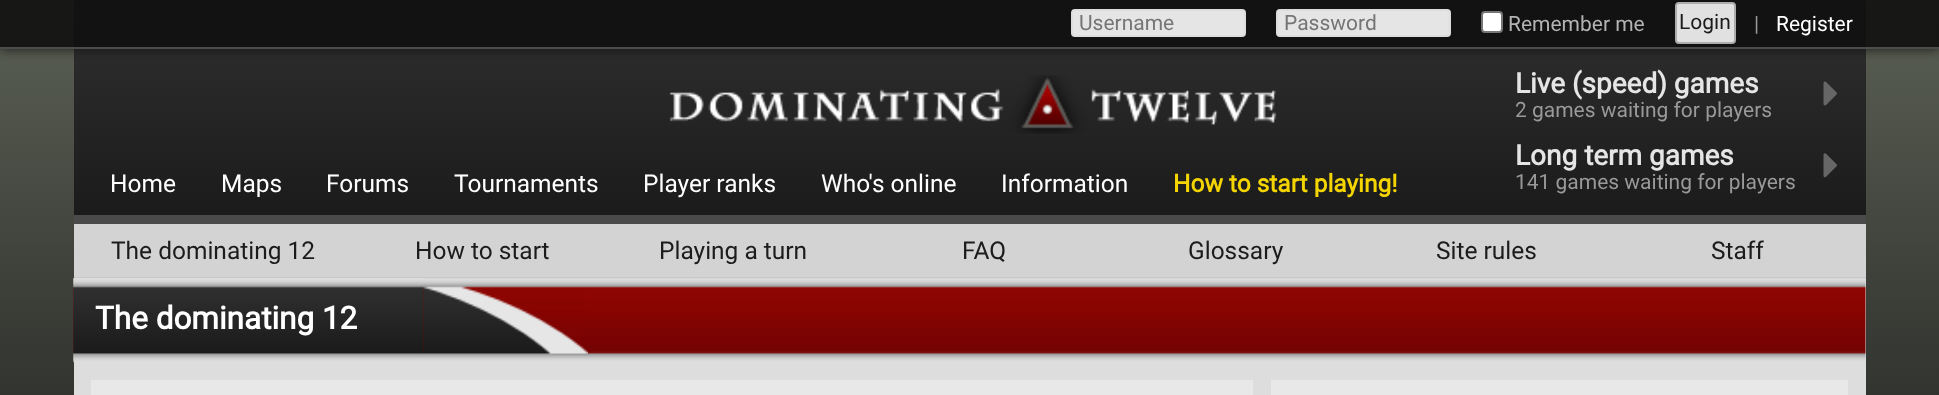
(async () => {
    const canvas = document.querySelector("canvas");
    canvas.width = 1939;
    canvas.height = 395;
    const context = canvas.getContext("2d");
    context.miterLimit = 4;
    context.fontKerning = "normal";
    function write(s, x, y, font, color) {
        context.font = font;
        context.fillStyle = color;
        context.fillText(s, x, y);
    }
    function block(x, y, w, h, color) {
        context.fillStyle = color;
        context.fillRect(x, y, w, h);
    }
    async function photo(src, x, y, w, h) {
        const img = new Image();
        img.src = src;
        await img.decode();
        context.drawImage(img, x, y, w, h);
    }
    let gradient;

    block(0, 0, 1939, 395, "rgb(255, 255, 255)");
    gradient = context.createLinearGradient(970, 0, 970, 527);
    gradient.addColorStop(0, "rgb(91, 96, 84)");
    gradient.addColorStop(1, "rgb(36, 37, 35)");
    context.fillStyle = gradient;
    context.fillRect(0, 49, 1939, 346);
    gradient = context.createLinearGradient(970, 0, 970, 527);
    gradient.addColorStop(0, "rgb(23, 23, 22)");
    gradient.addColorStop(1, "rgb(17, 17, 17)");
    context.fillStyle = gradient;
    context.fillRect(0, 0, 1939, 47);
    gradient = context.createLinearGradient(970, 0, 970, 215);
    gradient.addColorStop(0, "rgb(48, 48, 48)");
    gradient.addColorStop(1, "rgb(27, 27, 27)");
    context.fillStyle = gradient;
    context.fillRect(74, 49, 1792, 166);
    gradient = context.createLinearGradient(970, 0, 970, 215);
    gradient.addColorStop(0, "rgb(18, 18, 18)");
    gradient.addColorStop(1, "rgb(16, 16, 16)");
    context.fillStyle = gradient;
    context.fillRect(74, 0, 1792, 47);
    context.save();
    context.beginPath();
    context.rect(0, 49, 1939, 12);
    context.clip();
    context.fillStyle = "rgba(15, 15, 15, 0.9)";
    context.filter = "blur(6px)";
    context.beginPath();
    context.rect(0, 0, 1939, 49);
    context.fill();
    context.filter = "none";
    context.restore();
    block(0, 47, 1939, 2, "rgb(76, 76, 76)");
    context.fillStyle = "rgb(229, 229, 229)";
    context.beginPath();
    context.roundRect(1072, 10, 173, 26, 3);
    context.fill();
    context.strokeStyle = "rgb(221, 221, 221)";
    context.lineWidth = 2;
    context.stroke();
    write("Username", 1079, 30, "21px Roboto", "rgb(117, 117, 117)");
    context.fillStyle = "rgb(229, 229, 229)";
    context.beginPath();
    context.roundRect(1277, 10, 173, 26, 3);
    context.fill();
    context.stroke();
    write("Password", 1284, 30, "21px Roboto", "rgb(117, 117, 117)");
    context.fillStyle = "rgb(255, 255, 255)";
    context.beginPath();
    context.roundRect(1482, 12, 20, 20, 3);
    context.fill();
    context.strokeStyle = "rgb(118, 118, 118)";
    context.stroke();
    write("Remember me", 1508, 31, "21px Roboto", "rgb(179, 179, 179)");
    context.fillStyle = "rgb(225, 225, 225)";
    context.beginPath();
    context.roundRect(1676, 3, 59, 40, 3);
    context.fill();
    context.strokeStyle = "rgb(173, 173, 173)";
    context.stroke();
    write("Login", 1679, 29, "21px Roboto", "rgb(28, 28, 28)");
    write("|", 1754, 31, "21px Roboto", "rgb(153, 153, 153)");
    write("Register", 1776, 31, "21px Roboto", "rgb(255, 255, 255)");
    block(74, 215, 1792, 9, "rgb(74, 74, 74)");
    await photo("media/1.png", 669, 75, 608, 59);
    write("Live (speed) games", 1515, 93, "bold 28px Roboto", "rgb(229, 229, 229)");
    await photo("media/2.png", 1823, 81, 14, 25);
    write("2 games waiting for players", 1515, 117, "21px Roboto", "rgb(153, 153, 153)");
    write("Long term games", 1515, 165, "bold 28px Roboto", "rgb(229, 229, 229)");
    await photo("media/3.png", 1823, 153, 14, 25);
    write("141 games waiting for players", 1515, 189, "21px Roboto", "rgb(153, 153, 153)");
    write("Home", 110, 192, "24.5px Roboto", "rgb(255, 255, 255)");
    write("Maps", 221, 192, "24.5px Roboto", "rgb(255, 255, 255)");
    write("Forums", 326, 192, "24.5px Roboto", "rgb(255, 255, 255)");
    write("Tournaments", 454, 192, "24.5px Roboto", "rgb(255, 255, 255)");
    write("Player ranks", 643, 192, "24.5px Roboto", "rgb(255, 255, 255)");
    write("Who's online", 821, 192, "24.5px Roboto", "rgb(255, 255, 255)");
    write("Information", 1001, 192, "24.5px Roboto", "rgb(255, 255, 255)");
    write("How to start playing!", 1173, 192, "bold 24.5px Roboto", "rgb(245, 213, 0)");
    block(74, 279, 1792, 116, "rgb(221, 221, 221)");
    block(74, 224, 1792, 53, "rgb(211, 211, 211)");
    block(74, 277, 1792, 2, "rgb(200, 200, 200)");
    write("The dominating 12", 111, 259, "24.5px Roboto", "rgb(28, 28, 28)");
    write("How to start", 415, 259, "24.5px Roboto", "rgb(28, 28, 28)");
    write("Playing a turn", 659, 259, "24.5px Roboto", "rgb(28, 28, 28)");
    write("FAQ", 962, 259, "24.5px Roboto", "rgb(28, 28, 28)");
    write("Glossary", 1188, 259, "24.5px Roboto", "rgb(28, 28, 28)");
    write("Site rules", 1436, 259, "24.5px Roboto", "rgb(28, 28, 28)");
    write("Staff", 1711, 259, "24.5px Roboto", "rgb(28, 28, 28)");
    await photo("media/4.png", 73, 278, 1793, 85);
    await photo("media/5.png", 73, 278, 351, 83);
    write("The dominating 12", 95, 329, "bold 31.5px Roboto", "rgb(255, 255, 255)");
    await photo("media/6.png", 423, 286, 165, 68);
    block(91, 380, 1162, 15, "rgb(232, 232, 232)");
    block(1271, 380, 577, 15, "rgb(232, 232, 232)");
})();
